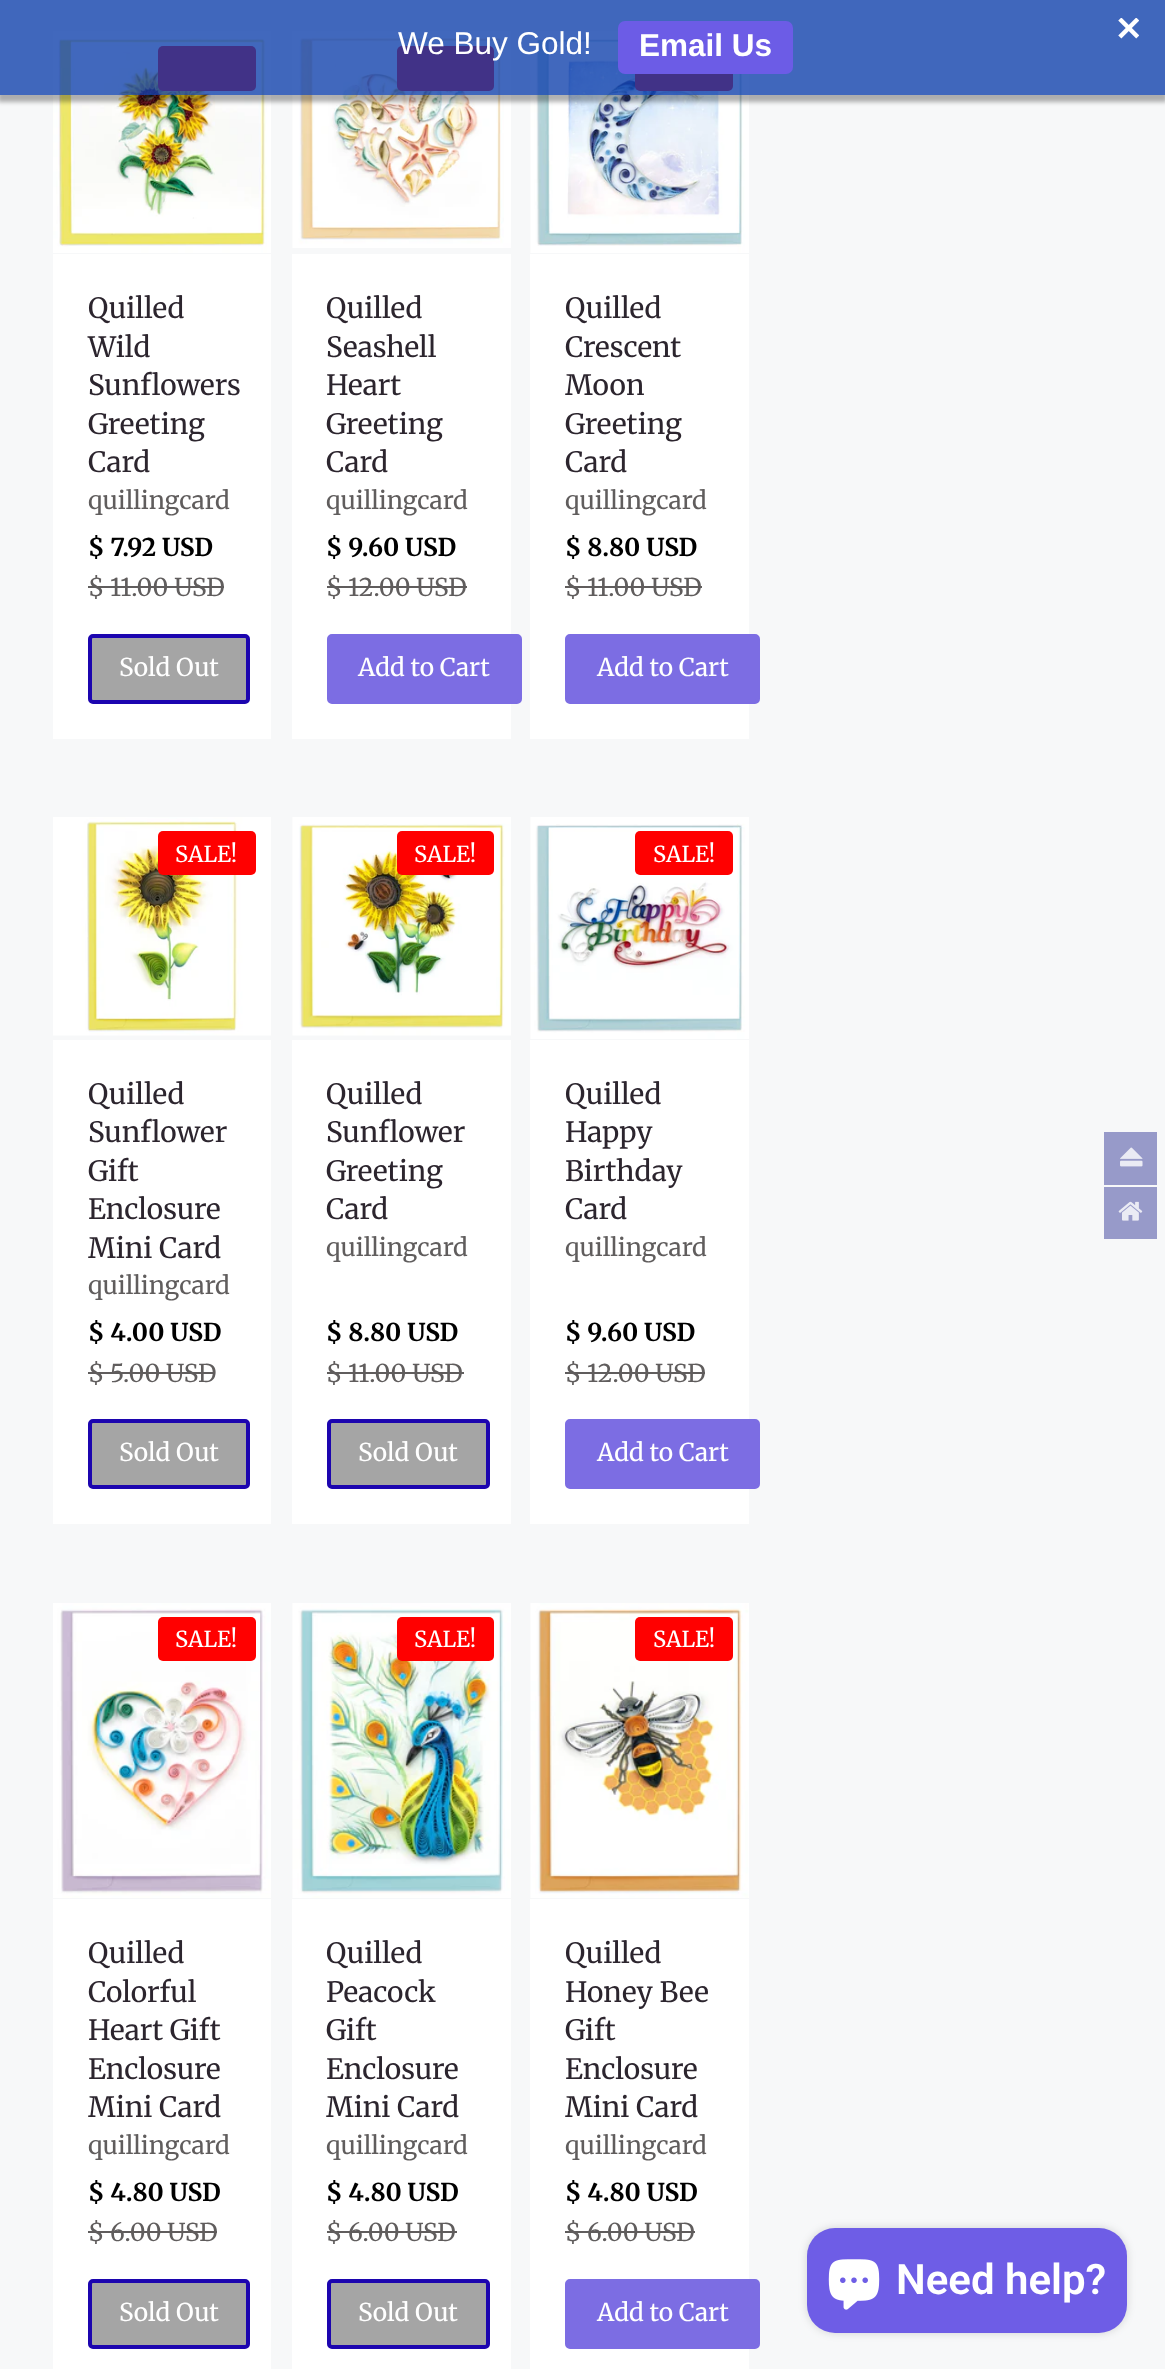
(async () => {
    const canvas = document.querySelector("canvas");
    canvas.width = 1165;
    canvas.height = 2369;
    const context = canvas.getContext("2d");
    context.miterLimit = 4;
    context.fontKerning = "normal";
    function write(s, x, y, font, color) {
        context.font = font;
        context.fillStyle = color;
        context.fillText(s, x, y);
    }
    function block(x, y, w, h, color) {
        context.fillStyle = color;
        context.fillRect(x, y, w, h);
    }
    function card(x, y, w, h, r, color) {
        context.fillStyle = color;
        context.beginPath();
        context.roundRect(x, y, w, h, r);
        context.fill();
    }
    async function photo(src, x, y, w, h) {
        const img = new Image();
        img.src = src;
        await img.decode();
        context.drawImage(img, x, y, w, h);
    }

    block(0, 0, 1165, 2369, "rgb(247, 248, 249)");
    await photo("media/2.png", 53, 31, 218, 222);
    card(158, 46, 98, 45, 5, "rgb(255, 0, 0)");
    await photo("media/3.png", 292, 31, 219, 217);
    card(397, 46, 97, 45, 5, "rgb(255, 0, 0)");
    await photo("media/4.png", 530, 31, 219, 222);
    card(635, 46, 98, 45, 5, "rgb(255, 0, 0)");
    context.save();
    context.beginPath();
    context.moveTo(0, 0);
    context.lineTo(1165, 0);
    context.lineTo(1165, 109);
    context.lineTo(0, 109);
    context.closePath();
    context.moveTo(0, 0);
    context.lineTo(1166, 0);
    context.lineTo(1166, 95);
    context.lineTo(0, 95);
    context.closePath();
    context.clip("evenodd");
    context.fillStyle = "rgba(0, 0, 0, 0.3)";
    context.filter = "blur(2px)";
    context.beginPath();
    context.rect(-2, 4, 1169, 98);
    context.fill();
    context.filter = "none";
    context.restore();
    block(0, 0, 1165, 95, "rgba(14, 63, 171, 0.79)");
    await photo("media/1.png", 1118, 18, 21, 21);
    write("We Buy Gold!", 398, 54, "31.5px Liberation Sans", "rgb(255, 255, 255)");
    card(618, 21, 175, 53, 7, "rgb(108, 92, 230)");
    write("Email Us", 639, 56, "bold 31.5px Liberation Sans", "rgb(255, 255, 255)");
    block(53, 254, 218, 485, "rgb(255, 255, 255)");
    write("Quilled", 88, 318, "28px Merriweather", "rgb(44, 37, 46)");
    write("Wild", 88, 357, "28px Merriweather", "rgb(44, 37, 46)");
    write("Sunflowers", 88, 395, "28px Merriweather", "rgb(44, 37, 46)");
    write("Greeting", 88, 434, "28px Merriweather", "rgb(44, 37, 46)");
    write("Card", 88, 472, "28px Merriweather", "rgb(44, 37, 46)");
    write("quillingcard", 88, 509, "24.5px Merriweather", "rgb(96, 93, 93)");
    write("$ 7.92 USD", 88, 556, "bold 24.5px Merriweather", "rgb(0, 0, 0)");
    write("$ 11.00 USD", 88, 596, "24.5px Merriweather", "rgb(96, 93, 93)");
    block(88, 586, 136, 2, "rgb(96, 93, 93)");
    context.fillStyle = "rgb(165, 165, 165)";
    context.beginPath();
    context.roundRect(90, 636, 158, 66, 3);
    context.fill();
    context.strokeStyle = "rgb(28, 5, 175)";
    context.lineWidth = 4;
    context.stroke();
    write("Sold Out", 119, 676, "24.5px Merriweather", "rgb(255, 255, 255)");
    block(292, 254, 219, 485, "rgb(255, 255, 255)");
    write("Quilled", 326, 318, "28px Merriweather", "rgb(44, 37, 46)");
    write("Seashell", 326, 357, "28px Merriweather", "rgb(44, 37, 46)");
    write("Heart", 326, 395, "28px Merriweather", "rgb(44, 37, 46)");
    write("Greeting", 326, 434, "28px Merriweather", "rgb(44, 37, 46)");
    write("Card", 326, 472, "28px Merriweather", "rgb(44, 37, 46)");
    write("quillingcard", 326, 509, "24.5px Merriweather", "rgb(96, 93, 93)");
    write("$ 9.60 USD", 326, 556, "bold 24.5px Merriweather", "rgb(0, 0, 0)");
    write("$ 12.00 USD", 326, 596, "24.5px Merriweather", "rgb(96, 93, 93)");
    block(327, 586, 140, 2, "rgb(96, 93, 93)");
    context.fillStyle = "rgb(124, 109, 227)";
    context.beginPath();
    context.roundRect(329, 636, 191, 66, 3);
    context.fill();
    context.strokeStyle = "rgb(124, 109, 227)";
    context.stroke();
    write("Add to Cart", 358, 676, "24.5px Merriweather", "rgb(255, 255, 255)");
    block(530, 254, 219, 485, "rgb(255, 255, 255)");
    write("Quilled", 565, 318, "28px Merriweather", "rgb(44, 37, 46)");
    write("Crescent", 565, 357, "28px Merriweather", "rgb(44, 37, 46)");
    write("Moon", 565, 395, "28px Merriweather", "rgb(44, 37, 46)");
    write("Greeting", 565, 434, "28px Merriweather", "rgb(44, 37, 46)");
    write("Card", 565, 472, "28px Merriweather", "rgb(44, 37, 46)");
    write("quillingcard", 565, 509, "24.5px Merriweather", "rgb(96, 93, 93)");
    write("$ 8.80 USD", 565, 556, "bold 24.5px Merriweather", "rgb(0, 0, 0)");
    write("$ 11.00 USD", 565, 596, "24.5px Merriweather", "rgb(96, 93, 93)");
    block(565, 586, 137, 2, "rgb(96, 93, 93)");
    context.fillStyle = "rgb(124, 109, 227)";
    context.beginPath();
    context.roundRect(567, 636, 191, 66, 3);
    context.fill();
    context.stroke();
    write("Add to Cart", 597, 676, "24.5px Merriweather", "rgb(255, 255, 255)");
    await photo("media/5.png", 53, 817, 218, 219);
    block(53, 1040, 218, 484, "rgb(255, 255, 255)");
    card(158, 831, 98, 44, 5, "rgb(255, 0, 0)");
    write("SALE!", 175, 862, "22px Merriweather", "rgb(255, 255, 255)");
    write("Quilled", 88, 1104, "28px Merriweather", "rgb(44, 37, 46)");
    write("Sunflower", 88, 1142, "28px Merriweather", "rgb(44, 37, 46)");
    write("Gift", 88, 1181, "28px Merriweather", "rgb(44, 37, 46)");
    write("Enclosure", 88, 1219, "28px Merriweather", "rgb(44, 37, 46)");
    write("Mini Card", 88, 1258, "28px Merriweather", "rgb(44, 37, 46)");
    write("quillingcard", 88, 1294, "24.5px Merriweather", "rgb(96, 93, 93)");
    write("$ 4.00 USD", 88, 1341, "bold 24.5px Merriweather", "rgb(0, 0, 0)");
    write("$ 5.00 USD", 88, 1382, "24.5px Merriweather", "rgb(96, 93, 93)");
    block(88, 1372, 127, 2, "rgb(96, 93, 93)");
    context.fillStyle = "rgb(165, 165, 165)";
    context.beginPath();
    context.roundRect(90, 1421, 158, 66, 3);
    context.fill();
    context.strokeStyle = "rgb(28, 5, 175)";
    context.stroke();
    write("Sold Out", 119, 1461, "24.5px Merriweather", "rgb(255, 255, 255)");
    await photo("media/6.png", 292, 817, 219, 219);
    block(292, 1040, 219, 484, "rgb(255, 255, 255)");
    card(397, 831, 97, 44, 5, "rgb(255, 0, 0)");
    write("SALE!", 414, 862, "22px Merriweather", "rgb(255, 255, 255)");
    write("Quilled", 326, 1104, "28px Merriweather", "rgb(44, 37, 46)");
    write("Sunflower", 326, 1142, "28px Merriweather", "rgb(44, 37, 46)");
    write("Greeting", 326, 1181, "28px Merriweather", "rgb(44, 37, 46)");
    write("Card", 326, 1219, "28px Merriweather", "rgb(44, 37, 46)");
    write("quillingcard", 326, 1256, "24.5px Merriweather", "rgb(96, 93, 93)");
    write("$ 8.80 USD", 326, 1341, "bold 24.5px Merriweather", "rgb(0, 0, 0)");
    write("$ 11.00 USD", 326, 1382, "24.5px Merriweather", "rgb(96, 93, 93)");
    block(327, 1372, 137, 2, "rgb(96, 93, 93)");
    context.fillStyle = "rgb(165, 165, 165)";
    context.beginPath();
    context.roundRect(329, 1421, 159, 66, 3);
    context.fill();
    context.stroke();
    write("Sold Out", 358, 1461, "24.5px Merriweather", "rgb(255, 255, 255)");
    await photo("media/7.png", 530, 817, 219, 222);
    block(530, 1040, 219, 484, "rgb(255, 255, 255)");
    card(635, 831, 98, 44, 5, "rgb(255, 0, 0)");
    write("SALE!", 653, 862, "22px Merriweather", "rgb(255, 255, 255)");
    write("Quilled", 565, 1104, "28px Merriweather", "rgb(44, 37, 46)");
    write("Happy", 565, 1142, "28px Merriweather", "rgb(44, 37, 46)");
    write("Birthday", 565, 1181, "28px Merriweather", "rgb(44, 37, 46)");
    write("Card", 565, 1219, "28px Merriweather", "rgb(44, 37, 46)");
    write("quillingcard", 565, 1256, "24.5px Merriweather", "rgb(96, 93, 93)");
    write("$ 9.60 USD", 565, 1341, "bold 24.5px Merriweather", "rgb(0, 0, 0)");
    write("$ 12.00 USD", 565, 1382, "24.5px Merriweather", "rgb(96, 93, 93)");
    block(565, 1372, 140, 2, "rgb(96, 93, 93)");
    context.fillStyle = "rgb(124, 109, 227)";
    context.beginPath();
    context.roundRect(567, 1421, 191, 66, 3);
    context.fill();
    context.strokeStyle = "rgb(124, 109, 227)";
    context.stroke();
    write("Add to Cart", 597, 1461, "24.5px Merriweather", "rgb(255, 255, 255)");
    await photo("media/8.png", 53, 1603, 218, 295);
    block(53, 1899, 218, 470, "rgb(255, 255, 255)");
    card(158, 1617, 98, 44, 5, "rgb(255, 0, 0)");
    write("SALE!", 175, 1647, "22px Merriweather", "rgb(255, 255, 255)");
    write("Quilled", 88, 1963, "28px Merriweather", "rgb(44, 37, 46)");
    write("Colorful", 88, 2002, "28px Merriweather", "rgb(44, 37, 46)");
    write("Heart Gift", 88, 2040, "28px Merriweather", "rgb(44, 37, 46)");
    write("Enclosure", 88, 2079, "28px Merriweather", "rgb(44, 37, 46)");
    write("Mini Card", 88, 2117, "28px Merriweather", "rgb(44, 37, 46)");
    write("quillingcard", 88, 2154, "24.5px Merriweather", "rgb(96, 93, 93)");
    write("$ 4.80 USD", 88, 2201, "bold 24.5px Merriweather", "rgb(0, 0, 0)");
    write("$ 6.00 USD", 88, 2241, "24.5px Merriweather", "rgb(96, 93, 93)");
    block(88, 2231, 129, 2, "rgb(96, 93, 93)");
    context.fillStyle = "rgb(165, 165, 165)";
    context.beginPath();
    context.roundRect(90, 2281, 158, 66, 3);
    context.fill();
    context.strokeStyle = "rgb(28, 5, 175)";
    context.stroke();
    write("Sold Out", 119, 2321, "24.5px Merriweather", "rgb(255, 255, 255)");
    await photo("media/9.png", 292, 1603, 219, 295);
    block(292, 1899, 219, 470, "rgb(255, 255, 255)");
    card(397, 1617, 97, 44, 5, "rgb(255, 0, 0)");
    write("SALE!", 414, 1647, "22px Merriweather", "rgb(255, 255, 255)");
    write("Quilled", 326, 1963, "28px Merriweather", "rgb(44, 37, 46)");
    write("Peacock", 326, 2002, "28px Merriweather", "rgb(44, 37, 46)");
    write("Gift", 326, 2040, "28px Merriweather", "rgb(44, 37, 46)");
    write("Enclosure", 326, 2079, "28px Merriweather", "rgb(44, 37, 46)");
    write("Mini Card", 326, 2117, "28px Merriweather", "rgb(44, 37, 46)");
    write("quillingcard", 326, 2154, "24.5px Merriweather", "rgb(96, 93, 93)");
    write("$ 4.80 USD", 326, 2201, "bold 24.5px Merriweather", "rgb(0, 0, 0)");
    write("$ 6.00 USD", 326, 2241, "24.5px Merriweather", "rgb(96, 93, 93)");
    block(327, 2231, 130, 2, "rgb(96, 93, 93)");
    context.fillStyle = "rgb(165, 165, 165)";
    context.beginPath();
    context.roundRect(329, 2281, 159, 66, 3);
    context.fill();
    context.stroke();
    write("Sold Out", 358, 2321, "24.5px Merriweather", "rgb(255, 255, 255)");
    await photo("media/10.png", 530, 1603, 219, 295);
    block(530, 1899, 219, 470, "rgb(255, 255, 255)");
    card(635, 1617, 98, 44, 5, "rgb(255, 0, 0)");
    write("SALE!", 653, 1647, "22px Merriweather", "rgb(255, 255, 255)");
    write("Quilled", 565, 1963, "28px Merriweather", "rgb(44, 37, 46)");
    write("Honey Bee", 565, 2002, "28px Merriweather", "rgb(44, 37, 46)");
    write("Gift", 565, 2040, "28px Merriweather", "rgb(44, 37, 46)");
    write("Enclosure", 565, 2079, "28px Merriweather", "rgb(44, 37, 46)");
    write("Mini Card", 565, 2117, "28px Merriweather", "rgb(44, 37, 46)");
    write("quillingcard", 565, 2154, "24.5px Merriweather", "rgb(96, 93, 93)");
    write("$ 4.80 USD", 565, 2201, "bold 24.5px Merriweather", "rgb(0, 0, 0)");
    write("$ 6.00 USD", 565, 2241, "24.5px Merriweather", "rgb(96, 93, 93)");
    block(565, 2231, 130, 2, "rgb(96, 93, 93)");
    context.fillStyle = "rgb(124, 109, 227)";
    context.beginPath();
    context.roundRect(567, 2281, 191, 66, 3);
    context.fill();
    context.strokeStyle = "rgb(124, 109, 227)";
    context.stroke();
    write("Add to Cart", 597, 2321, "24.5px Merriweather", "rgb(255, 255, 255)");
    block(1104, 1132, 53, 53, "rgb(151, 154, 201)");
    await photo("media/11.png", 1120, 1147, 23, 20);
    block(1104, 1187, 53, 52, "rgb(151, 154, 201)");
    await photo("media/12.png", 1118, 1201, 25, 20);
    context.fillStyle = "rgba(0, 0, 0, 0.15)";
    context.filter = "blur(4.5px)";
    context.beginPath();
    context.roundRect(807, 2228, 320, 105, 28);
    context.fill();
    context.filter = "none";
    card(807, 2228, 320, 105, 28, "rgb(110, 93, 230)");
    await photo("media/13.png", 828, 2259, 52, 51);
    write("Need help?", 896, 2294, "600 42px Roboto", "rgb(255, 255, 255)");
})();
